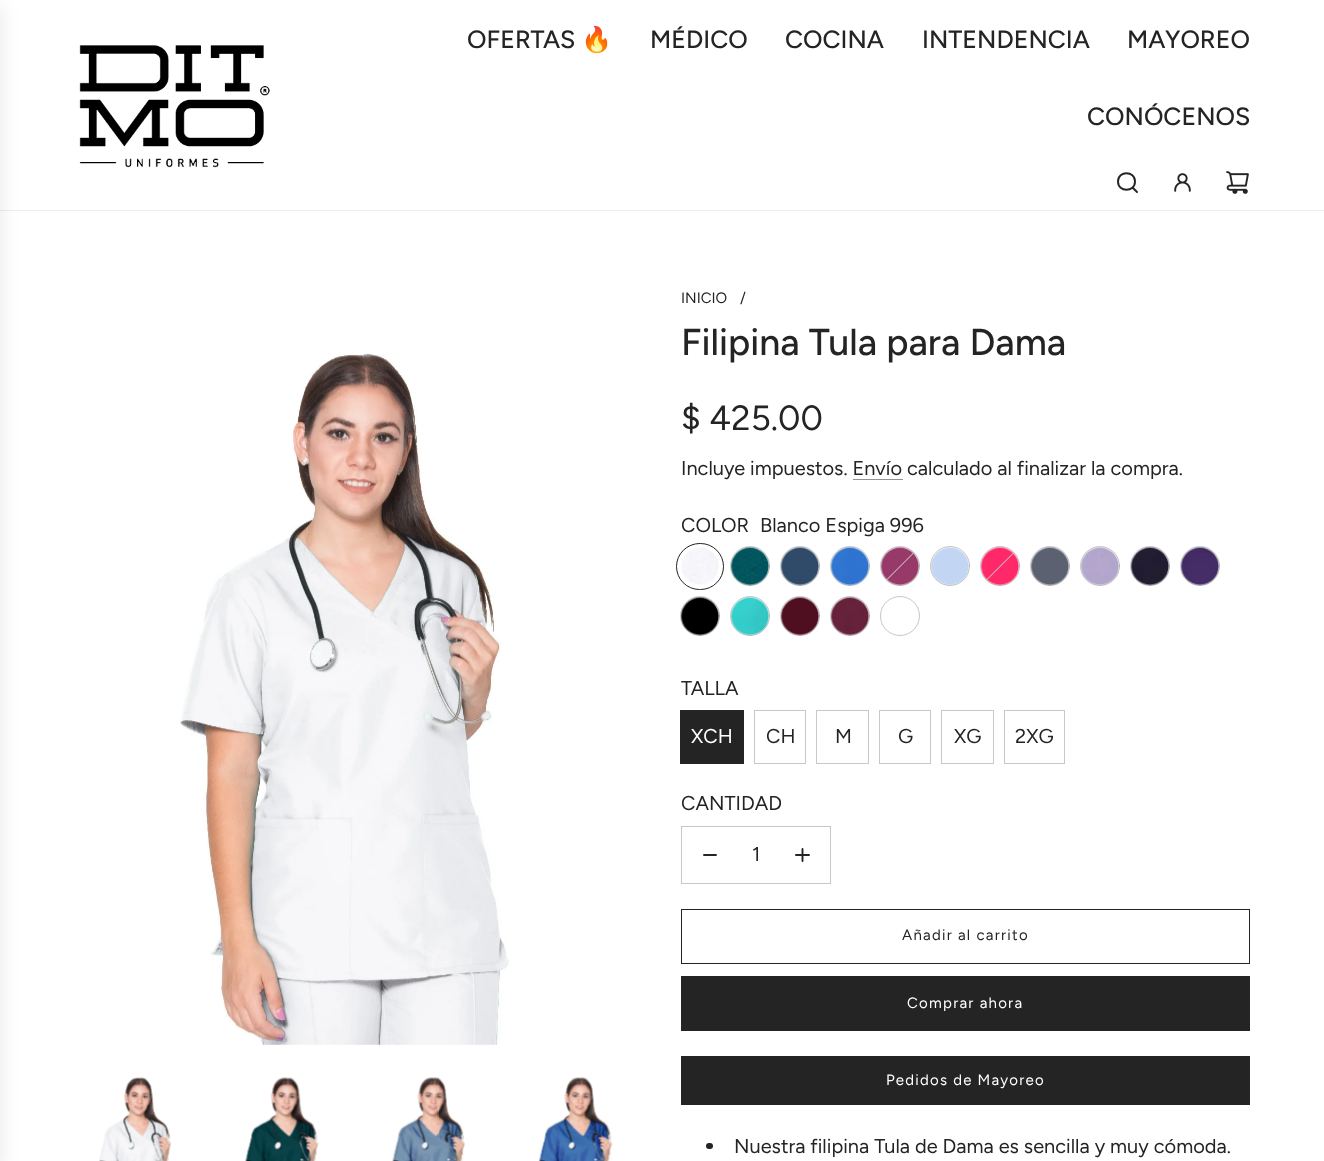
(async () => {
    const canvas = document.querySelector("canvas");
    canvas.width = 1324;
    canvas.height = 1161;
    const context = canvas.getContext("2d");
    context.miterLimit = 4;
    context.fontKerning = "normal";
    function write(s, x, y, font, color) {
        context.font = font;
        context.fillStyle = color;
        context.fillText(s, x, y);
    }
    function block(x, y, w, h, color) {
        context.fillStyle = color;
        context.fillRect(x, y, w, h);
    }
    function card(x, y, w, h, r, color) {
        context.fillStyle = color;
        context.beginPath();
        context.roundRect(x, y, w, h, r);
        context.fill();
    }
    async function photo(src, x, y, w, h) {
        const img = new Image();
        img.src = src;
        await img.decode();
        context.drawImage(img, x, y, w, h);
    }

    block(0, 0, 1324, 1161, "rgb(255, 255, 255)");
    block(0, 210, 1324, 1, "rgb(238, 238, 238)");
    context.fillStyle = "rgba(0, 0, 0, 0.1)";
    context.filter = "blur(9.5px)";
    context.beginPath();
    context.rect(-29, 6, 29, 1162);
    context.fill();
    context.filter = "none";
    await photo("media/1.png", 79, 45, 191, 123);
    write("OFERTAS", 467, 48, "500 25px Figtree", "rgb(36, 36, 36)");
    write("🔥", 581, 48, "25px Noto Color Emoji", "rgb(36, 36, 36)");
    write("MÉDICO", 650, 48, "500 25px Figtree", "rgb(36, 36, 36)");
    write("COCINA", 785, 48, "500 25px Figtree", "rgb(36, 36, 36)");
    write("INTENDENCIA", 922, 48, "500 25px Figtree", "rgb(36, 36, 36)");
    write("MAYOREO", 1127, 48, "500 25px Figtree", "rgb(36, 36, 36)");
    write("CONÓCENOS", 1087, 125, "500 25px Figtree", "rgb(36, 36, 36)");
    context.beginPath();
    context.moveTo(1132.5, 187.5);
    context.lineTo(1137, 192);
    context.moveTo(1118, 181.5);
    context.bezierCurveTo(1118, 192.5, 1135, 192.5, 1135, 181.5);
    context.bezierCurveTo(1135, 170.5, 1118, 170.5, 1118, 181.5);
    context.closePath();
    context.strokeStyle = "rgb(36, 36, 36)";
    context.lineWidth = 1.9;
    context.lineCap = "round";
    context.lineJoin = "round";
    context.stroke();
    await photo("media/2.png", 1174, 173, 17, 19);
    await photo("media/3.png", 1226, 171, 23, 23);
    await photo("media/4.png", 180, 352, 329, 693);
    await photo("media/5.png", 99, 1077, 73, 84);
    await photo("media/6.png", 245, 1077, 74, 84);
    await photo("media/7.png", 392, 1077, 73, 84);
    await photo("media/8.png", 538, 1077, 75, 84);
    write("INICIO", 681, 303, "15px Figtree", "rgb(36, 36, 36)");
    write("/", 740, 303, "15px Figtree", "rgb(36, 36, 36)");
    write("Filipina Tula para Dama", 681, 355, "500 37.5px Figtree", "rgb(36, 36, 36)");
    write("$ 425.00", 681, 430, "35px Figtree", "rgb(36, 36, 36)");
    write("Incluye impuestos. Envío", 681, 475, "20px Figtree", "rgb(36, 36, 36)");
    write("calculado al finalizar la compra.", 907, 475, "20px Figtree", "rgb(36, 36, 36)");
    block(853, 479, 50, 1, "rgb(146, 146, 146)");
    write("COLOR", 681, 532, "20px Figtree", "rgb(36, 36, 36)");
    write("Blanco Espiga 996", 760, 532, "20px Figtree", "rgb(36, 36, 36)");
    await photo("media/9.png", 681, 547, 38, 38);
    context.beginPath();
    context.roundRect(676.5, 543.5, 47, 46, 23);
    context.lineWidth = 1;
    context.lineJoin = "miter";
    context.stroke();
    await photo("media/10.png", 731, 547, 39, 39);
    context.beginPath();
    context.arc(750, 566, 19.5, 0, Math.PI * 2);
    context.strokeStyle = "rgba(36, 36, 36, 0.25)";
    context.stroke();
    await photo("media/11.png", 781, 547, 39, 39);
    context.beginPath();
    context.arc(800, 566, 19.5, 0, Math.PI * 2);
    context.stroke();
    await photo("media/12.png", 831, 547, 39, 39);
    context.beginPath();
    context.arc(850, 566, 19.5, 0, Math.PI * 2);
    context.stroke();
    await photo("media/13.png", 881, 547, 39, 39);
    context.beginPath();
    context.arc(900, 566, 19.5, 0, Math.PI * 2);
    context.stroke();
    context.fillStyle = "rgb(255, 255, 255)";
    context.beginPath();
    context.moveTo(886.5, 579.5);
    context.lineTo(913, 553);
    context.lineTo(913.5, 553.5);
    context.lineTo(887, 580);
    context.closePath();
    context.fill();
    context.fillStyle = "rgba(36, 36, 36, 0.25)";
    context.beginPath();
    context.moveTo(886.5, 579.5);
    context.lineTo(913, 553);
    context.lineTo(913.5, 553.5);
    context.lineTo(887, 580);
    context.closePath();
    context.fill();
    await photo("media/14.png", 931, 547, 39, 39);
    context.beginPath();
    context.arc(950, 566, 19.5, 0, Math.PI * 2);
    context.stroke();
    await photo("media/15.png", 981, 547, 39, 39);
    context.beginPath();
    context.arc(1000, 566, 19.5, 0, Math.PI * 2);
    context.stroke();
    context.fillStyle = "rgb(255, 255, 255)";
    context.beginPath();
    context.moveTo(986.5, 579.5);
    context.lineTo(1013, 553);
    context.lineTo(1013.5, 553.5);
    context.lineTo(987, 580);
    context.closePath();
    context.fill();
    context.fillStyle = "rgba(36, 36, 36, 0.25)";
    context.beginPath();
    context.moveTo(986.5, 579.5);
    context.lineTo(1013, 553);
    context.lineTo(1013.5, 553.5);
    context.lineTo(987, 580);
    context.closePath();
    context.fill();
    await photo("media/16.png", 1031, 547, 39, 39);
    context.beginPath();
    context.arc(1050, 566, 19.5, 0, Math.PI * 2);
    context.stroke();
    await photo("media/17.png", 1081, 547, 39, 39);
    context.beginPath();
    context.arc(1100, 566, 19.5, 0, Math.PI * 2);
    context.stroke();
    await photo("media/18.png", 1131, 547, 39, 39);
    context.beginPath();
    context.arc(1150, 566, 19.5, 0, Math.PI * 2);
    context.stroke();
    await photo("media/19.png", 1181, 547, 39, 39);
    context.beginPath();
    context.arc(1200, 566, 19.5, 0, Math.PI * 2);
    context.stroke();
    await photo("media/20.png", 681, 597, 39, 39);
    context.beginPath();
    context.arc(700, 616, 19.5, 0, Math.PI * 2);
    context.stroke();
    await photo("media/21.png", 731, 597, 39, 39);
    context.beginPath();
    context.arc(750, 616, 19.5, 0, Math.PI * 2);
    context.stroke();
    await photo("media/22.png", 781, 597, 39, 39);
    context.beginPath();
    context.arc(800, 616, 19.5, 0, Math.PI * 2);
    context.stroke();
    await photo("media/23.png", 831, 597, 39, 39);
    context.beginPath();
    context.arc(850, 616, 19.5, 0, Math.PI * 2);
    context.stroke();
    context.beginPath();
    context.arc(900, 616, 19.5, 0, Math.PI * 2);
    context.strokeStyle = "rgb(200, 200, 200)";
    context.stroke();
    write("TALLA", 681, 695, "20px Figtree", "rgb(36, 36, 36)");
    block(681, 711, 62, 52, "rgb(36, 36, 36)");
    context.strokeStyle = "rgb(36, 36, 36)";
    context.strokeRect(680.5, 710.5, 63, 53);
    write("XCH", 691, 743, "20px Figtree", "rgb(255, 255, 255)");
    context.strokeStyle = "rgb(200, 200, 200)";
    context.strokeRect(754.5, 710.5, 51, 53);
    write("CH", 766, 743, "20px Figtree", "rgb(36, 36, 36)");
    context.strokeRect(816.5, 710.5, 52, 53);
    write("M", 835, 743, "20px Figtree", "rgb(36, 36, 36)");
    context.strokeRect(879.5, 710.5, 51, 53);
    write("G", 898, 743, "20px Figtree", "rgb(36, 36, 36)");
    context.strokeRect(941.5, 710.5, 52, 53);
    write("XG", 954, 743, "20px Figtree", "rgb(36, 36, 36)");
    context.strokeRect(1004.5, 710.5, 60, 53);
    write("2XG", 1015, 743, "20px Figtree", "rgb(36, 36, 36)");
    write("CANTIDAD", 681, 810, "20px Figtree", "rgb(36, 36, 36)");
    context.strokeRect(681.5, 826.5, 149, 57);
    context.beginPath();
    context.moveTo(704, 855);
    context.lineTo(716, 855);
    context.strokeStyle = "rgb(36, 36, 36)";
    context.lineWidth = 1.9;
    context.lineJoin = "round";
    context.stroke();
    write("1", 752, 861, "20px Figtree", "rgb(36, 36, 36)");
    context.beginPath();
    context.moveTo(796, 855);
    context.lineTo(802.5, 855);
    context.moveTo(802.5, 855);
    context.lineTo(809, 855);
    context.moveTo(802.5, 855);
    context.lineTo(802.5, 849);
    context.moveTo(802.5, 855);
    context.lineTo(802.5, 861);
    context.stroke();
    context.lineWidth = 1;
    context.lineJoin = "miter";
    context.strokeRect(681.5, 909.5, 568, 54);
    context.letterSpacing = "1.25px";
    write("Añadir al carrito", 902, 940, "15px Figtree", "rgb(36, 36, 36)");
    block(681, 976, 569, 55, "rgb(36, 36, 36)");
    write("Comprar ahora", 907, 1008, "15px Figtree", "rgb(255, 255, 255)");
    block(681, 1056, 569, 49, "rgb(36, 36, 36)");
    write("Pedidos de Mayoreo", 886, 1085, "15px Figtree", "rgb(255, 255, 255)");
    card(706, 1143, 7, 6, 3, "rgb(36, 36, 36)");
    context.letterSpacing = "0px";
    write("Nuestra filipina Tula de Dama es sencilla y muy cómoda.", 734, 1153, "20px Figtree", "rgb(36, 36, 36)");
})();
